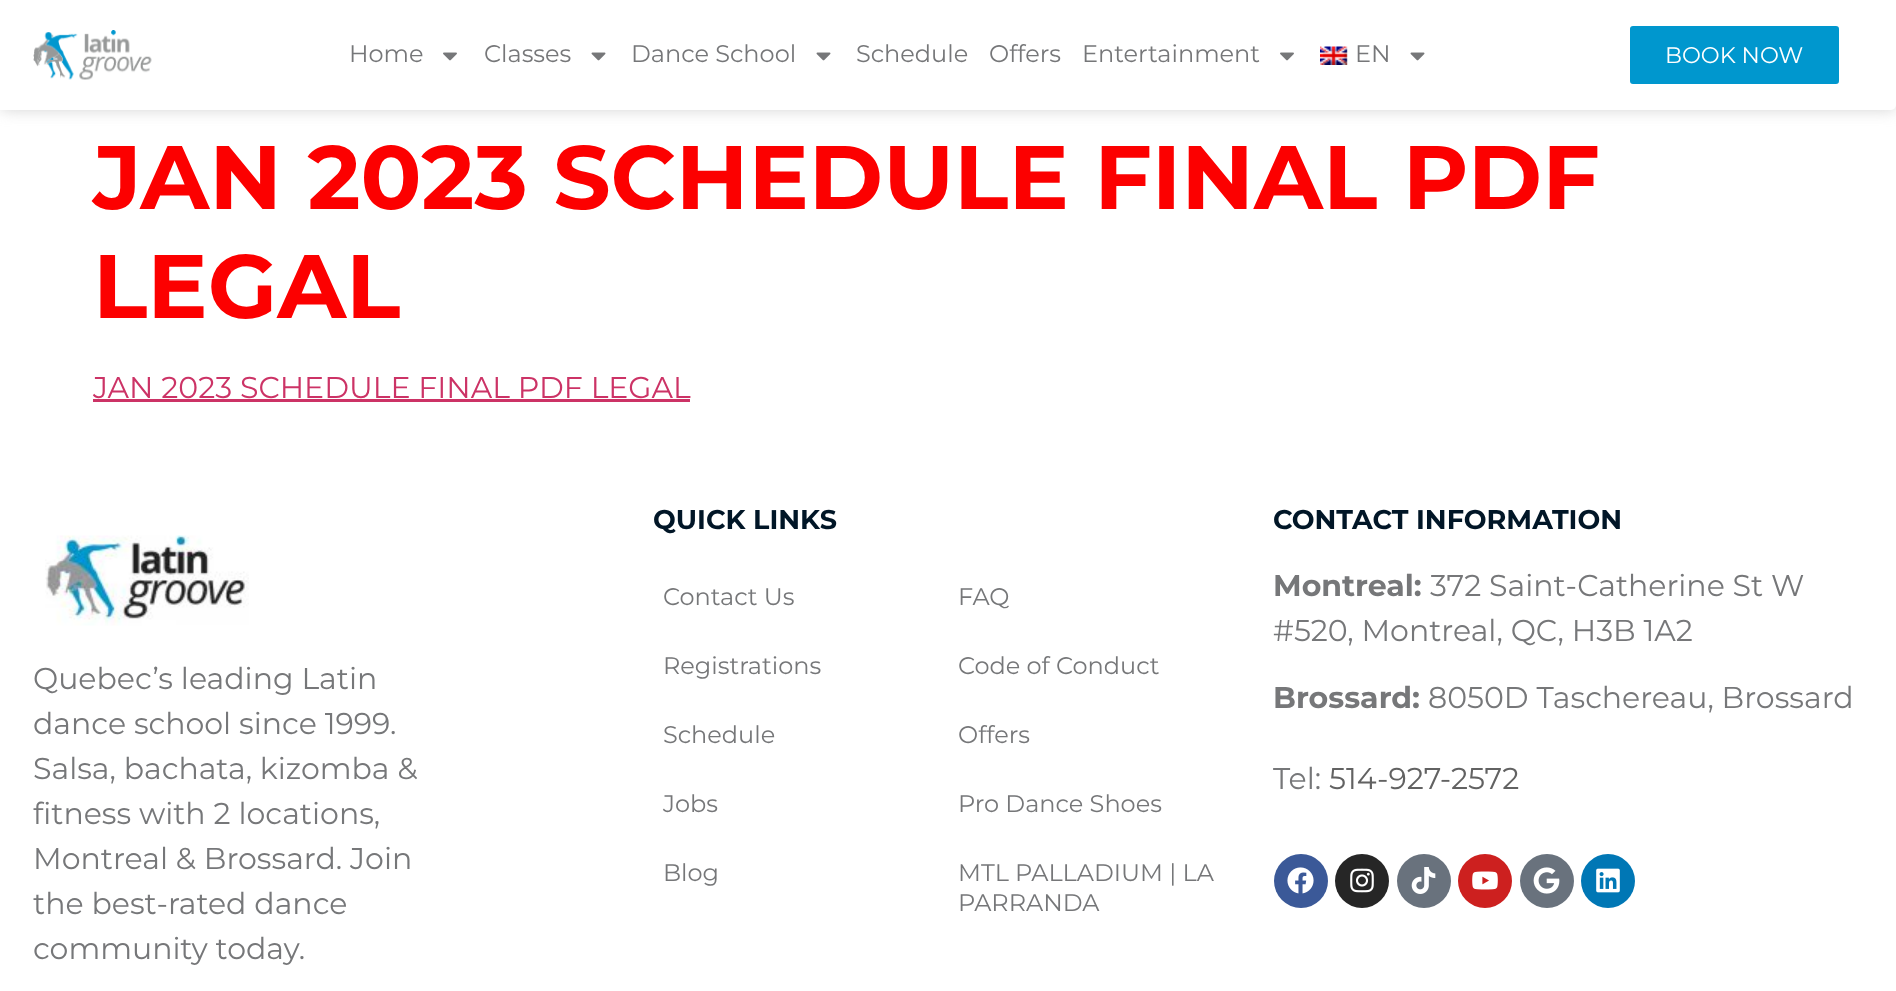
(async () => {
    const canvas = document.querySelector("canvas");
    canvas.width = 1896;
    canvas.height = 991;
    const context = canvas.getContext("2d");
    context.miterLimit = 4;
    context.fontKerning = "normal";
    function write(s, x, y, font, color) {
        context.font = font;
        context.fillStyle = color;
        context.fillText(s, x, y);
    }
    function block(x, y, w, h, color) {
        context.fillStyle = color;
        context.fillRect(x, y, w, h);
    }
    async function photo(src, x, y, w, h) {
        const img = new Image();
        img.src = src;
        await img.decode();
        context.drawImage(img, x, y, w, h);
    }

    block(0, 0, 1896, 991, "rgb(255, 255, 255)");
    context.fillStyle = "rgba(170, 170, 170, 0.5)";
    context.filter = "blur(7.5px)";
    context.beginPath();
    context.roundRect(0, 0, 1896, 110, 5);
    context.fill();
    context.filter = "none";
    context.fillStyle = "rgb(255, 255, 255)";
    context.beginPath();
    context.roundRect(0, 0, 1896, 110, [0, 0, 5, 0]);
    context.fill();
    await photo("media/1.png", 33, 30, 119, 50);
    write("Home", 349, 62, "24px Montserrat", "rgb(118, 119, 121)");
    await photo("media/2.png", 443, 52, 14, 9);
    write("Classes", 484, 62, "24px Montserrat", "rgb(118, 119, 121)");
    await photo("media/3.png", 591, 52, 15, 9);
    write("Dance School", 631, 62, "24px Montserrat", "rgb(118, 119, 121)");
    await photo("media/3.png", 816, 52, 15, 9);
    write("Schedule", 856, 62, "24px Montserrat", "rgb(118, 119, 121)");
    write("Offers", 989, 62, "24px Montserrat", "rgb(118, 119, 121)");
    write("Entertainment", 1082, 62, "24px Montserrat", "rgb(118, 119, 121)");
    await photo("media/2.png", 1280, 52, 14, 9);
    await photo("media/4.png", 1320, 46, 28, 19);
    write("EN", 1355, 62, "24px Montserrat", "rgb(118, 119, 121)");
    await photo("media/3.png", 1410, 52, 15, 9);
    context.fillStyle = "rgb(0, 151, 206)";
    context.beginPath();
    context.roundRect(1629, 25, 211, 60, 4);
    context.fill();
    context.strokeStyle = "rgb(255, 255, 255)";
    context.lineWidth = 2;
    context.stroke();
    write("BOOK NOW", 1665, 63, "22.5px Montserrat", "rgb(255, 255, 255)");
    write("JAN 2023 SCHEDULE FINAL PDF", 93, 209, "bold 90px Montserrat", "rgb(252, 0, 0)");
    write("LEGAL", 93, 318, "bold 90px Montserrat", "rgb(252, 0, 0)");
    write("JAN 2023 SCHEDULE FINAL PDF LEGAL", 93, 398, "30px Montserrat", "rgb(204, 51, 102)");
    block(93, 399, 597, 3, "rgb(204, 51, 102)");
    await photo("media/5.png", 45, 535, 204, 91);
    write("Quebec’s leading Latin", 33, 689, "30px Montserrat", "rgb(118, 119, 121)");
    write("dance school since 1999.", 33, 734, "30px Montserrat", "rgb(118, 119, 121)");
    write("Salsa, bachata, kizomba &", 33, 779, "30px Montserrat", "rgb(118, 119, 121)");
    write("fitness with 2 locations,", 33, 824, "30px Montserrat", "rgb(118, 119, 121)");
    write("Montreal & Brossard. Join", 33, 869, "30px Montserrat", "rgb(118, 119, 121)");
    write("the best-rated dance", 33, 914, "30px Montserrat", "rgb(118, 119, 121)");
    write("community today.", 33, 959, "30px Montserrat", "rgb(118, 119, 121)");
    write("QUICK LINKS", 653, 529, "bold 27px Montserrat", "rgb(1, 22, 39)");
    write("Contact Us", 663, 605, "24px Montserrat", "rgb(118, 119, 121)");
    write("Registrations", 663, 674, "24px Montserrat", "rgb(118, 119, 121)");
    write("Schedule", 663, 743, "24px Montserrat", "rgb(118, 119, 121)");
    write("Jobs", 663, 812, "24px Montserrat", "rgb(118, 119, 121)");
    write("Blog", 663, 881, "24px Montserrat", "rgb(118, 119, 121)");
    write("FAQ", 958, 605, "24px Montserrat", "rgb(118, 119, 121)");
    write("Code of Conduct", 958, 674, "24px Montserrat", "rgb(118, 119, 121)");
    write("Offers", 958, 743, "24px Montserrat", "rgb(118, 119, 121)");
    write("Pro Dance Shoes", 958, 812, "24px Montserrat", "rgb(118, 119, 121)");
    write("MTL PALLADIUM | LA", 958, 881, "24px Montserrat", "rgb(118, 119, 121)");
    write("PARRANDA", 958, 911, "24px Montserrat", "rgb(118, 119, 121)");
    write("CONTACT INFORMATION", 1273, 529, "bold 27px Montserrat", "rgb(1, 22, 39)");
    write("Montreal:", 1273, 596, "bold 30px Montserrat", "rgb(118, 119, 121)");
    write("372 Saint-Catherine St W", 1430, 596, "30px Montserrat", "rgb(118, 119, 121)");
    write("#520, Montreal, QC, H3B 1A2", 1273, 641, "30px Montserrat", "rgb(118, 119, 121)");
    write("Brossard:", 1273, 708, "bold 30px Montserrat", "rgb(118, 119, 121)");
    write("8050D Taschereau, Brossard", 1428, 708, "30px Montserrat", "rgb(118, 119, 121)");
    write("Tel:", 1273, 789, "30px Montserrat", "rgb(118, 119, 121)");
    write("514-927-2572", 1329, 789, "30px Montserrat", "rgb(98, 98, 98)");
    context.fillStyle = "rgb(59, 89, 152)";
    context.beginPath();
    context.arc(1301, 881, 27, 0, Math.PI * 2);
    context.fill();
    await photo("media/6.png", 1287, 867, 27, 27);
    context.fillStyle = "rgb(38, 38, 38)";
    context.beginPath();
    context.arc(1362, 881, 27, 0, Math.PI * 2);
    context.fill();
    await photo("media/7.png", 1350, 868, 24, 25);
    context.fillStyle = "rgb(105, 114, 125)";
    context.beginPath();
    context.arc(1424, 881, 27, 0, Math.PI * 2);
    context.fill();
    await photo("media/8.png", 1411, 867, 25, 27);
    context.fillStyle = "rgb(205, 32, 31)";
    context.beginPath();
    context.arc(1485, 881, 27, 0, Math.PI * 2);
    context.fill();
    await photo("media/9.png", 1472, 871, 26, 19);
    context.fillStyle = "rgb(105, 114, 125)";
    context.beginPath();
    context.arc(1547, 881, 27, 0, Math.PI * 2);
    context.fill();
    await photo("media/10.png", 1533, 867, 27, 27);
    context.fillStyle = "rgb(0, 119, 181)";
    context.beginPath();
    context.arc(1608, 881, 27, 0, Math.PI * 2);
    context.fill();
    await photo("media/11.png", 1596, 868, 24, 25);
})();
